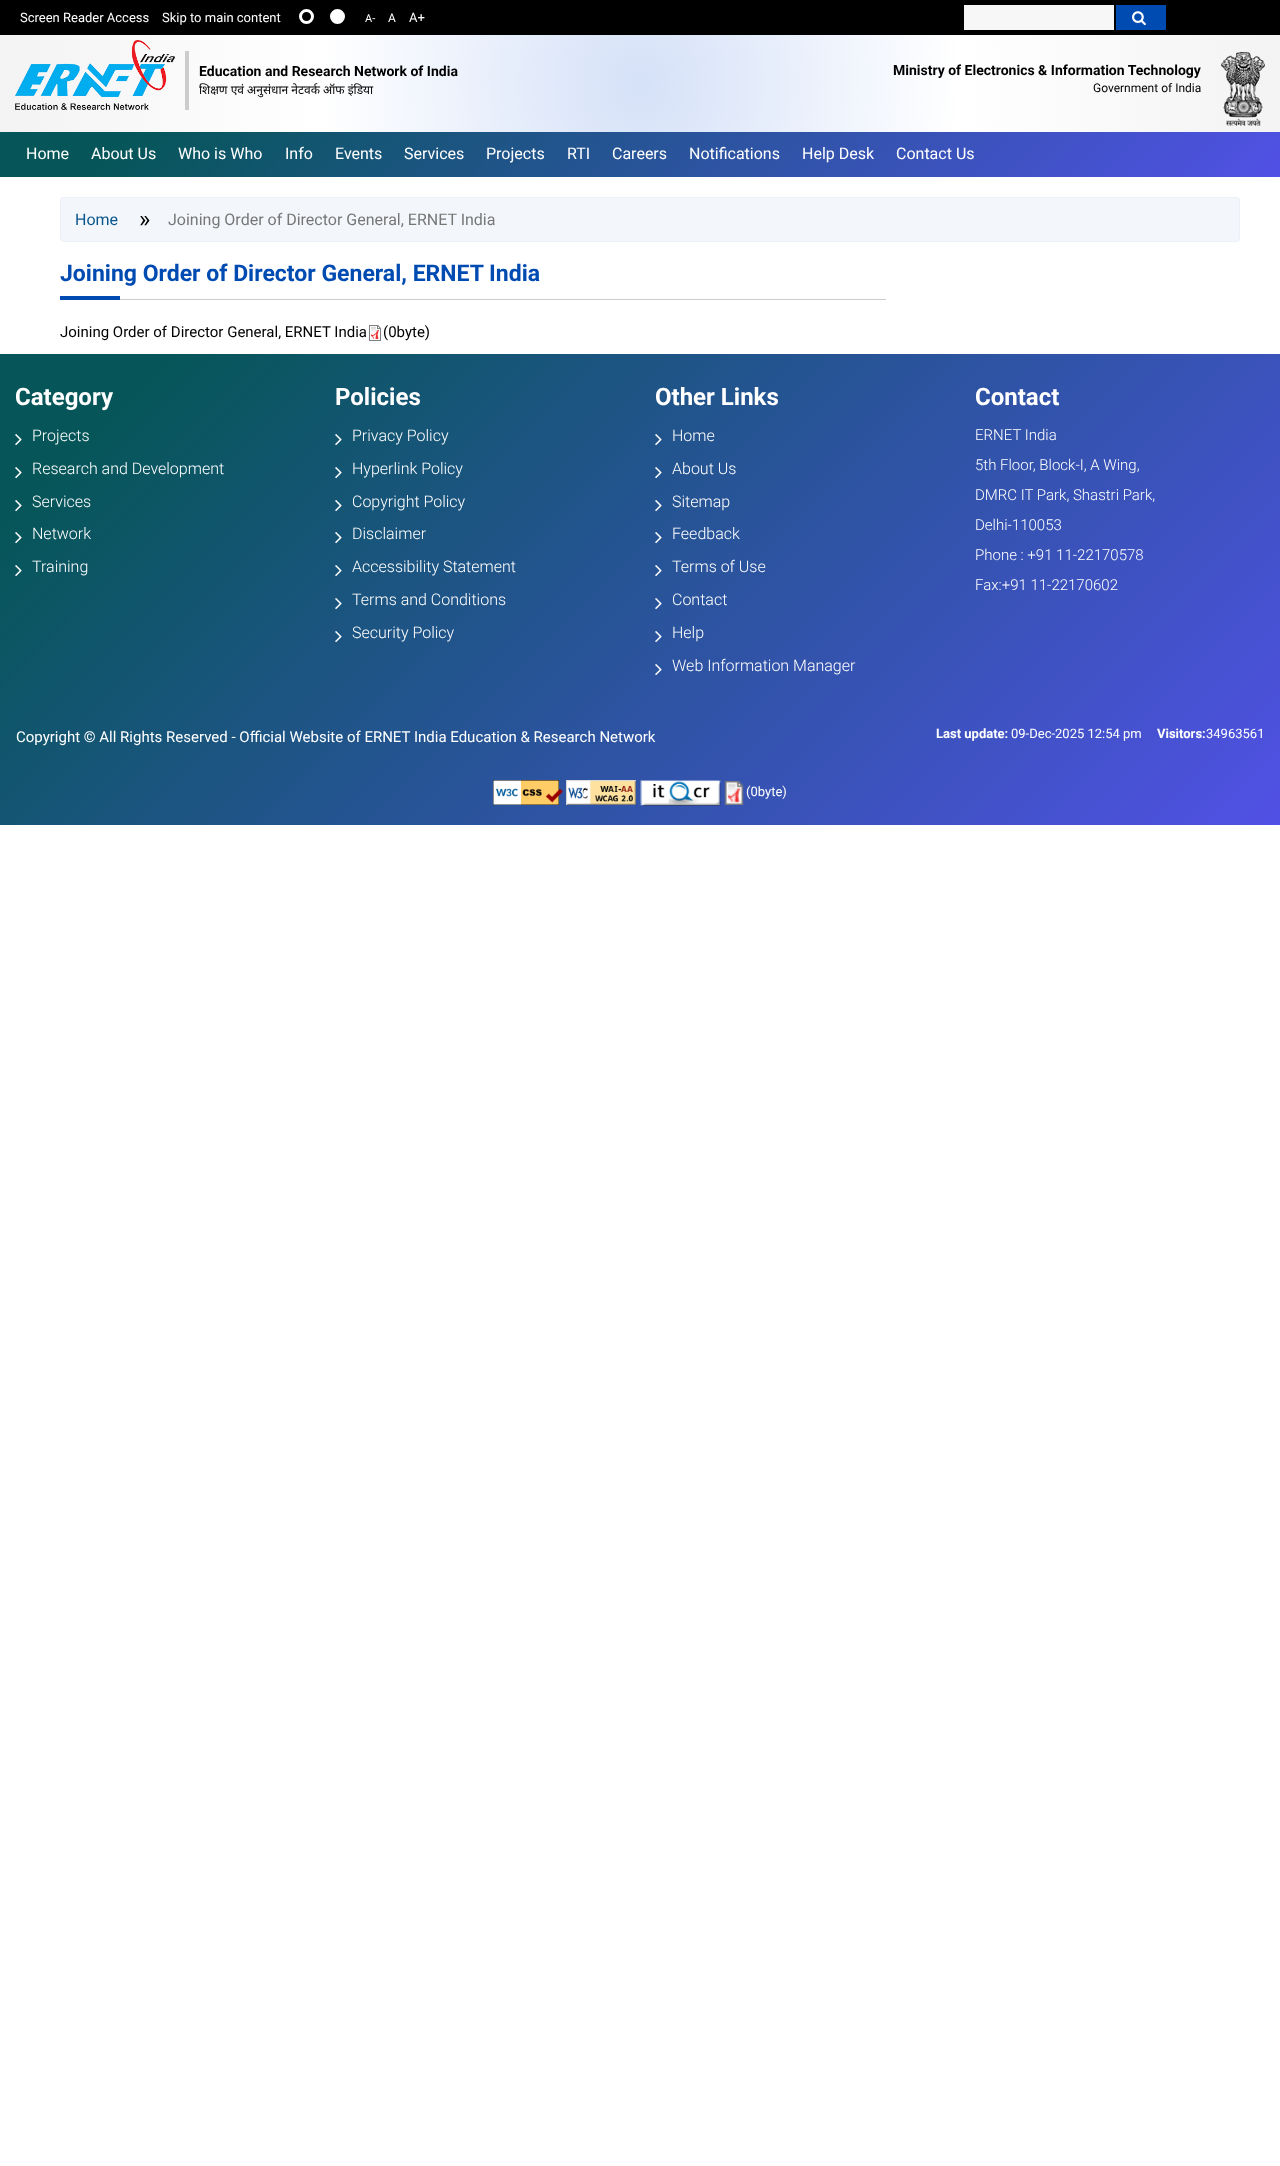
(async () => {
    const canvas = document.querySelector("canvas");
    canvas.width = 1280;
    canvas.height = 2166;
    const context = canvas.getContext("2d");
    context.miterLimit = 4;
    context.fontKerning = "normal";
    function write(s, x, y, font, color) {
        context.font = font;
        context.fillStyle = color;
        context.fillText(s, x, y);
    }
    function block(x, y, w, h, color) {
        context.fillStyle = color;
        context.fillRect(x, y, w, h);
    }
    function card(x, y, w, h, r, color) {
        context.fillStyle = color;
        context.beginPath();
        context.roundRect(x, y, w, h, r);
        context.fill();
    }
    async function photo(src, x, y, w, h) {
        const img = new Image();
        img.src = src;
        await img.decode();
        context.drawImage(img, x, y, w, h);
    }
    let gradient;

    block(0, 0, 1280, 2166, "rgb(255, 255, 255)");
    block(0, 0, 1280, 35, "rgb(0, 0, 0)");
    write("Screen Reader Access", 20, 22, "13px Roboto", "rgb(255, 255, 255)");
    write("Skip to main content", 162, 22, "13px Roboto", "rgb(255, 255, 255)");
    context.beginPath();
    context.arc(306.5, 16.5, 6, 0, Math.PI * 2);
    context.strokeStyle = "rgb(255, 255, 255)";
    context.lineWidth = 3;
    context.stroke();
    context.beginPath();
    context.arc(337.5, 16.5, 6, 0, Math.PI * 2);
    context.fill();
    context.stroke();
    write("A-", 365, 22, "11px Roboto", "rgb(255, 255, 255)");
    write("A", 388, 22, "12px Roboto", "rgb(255, 255, 255)");
    write("A+", 409, 22, "13px Roboto", "rgb(255, 255, 255)");
    block(964, 5, 150, 25, "rgb(247, 247, 247)");
    block(1116, 5, 50, 25, "rgb(0, 75, 177)");
    await photo("media/1.png", 1132, 11, 14, 15);
    gradient = context.createRadialGradient(640, 84, 0, 640, 84, 642);
    gradient.addColorStop(0, "rgb(213, 225, 248)");
    gradient.addColorStop(0.5, "rgb(255, 255, 255)");
    gradient.addColorStop(1, "rgb(243, 243, 243)");
    context.fillStyle = gradient;
    context.fillRect(0, 35, 1280, 97);
    await photo("media/2.png", 15, 40, 160, 70);
    block(185, 51, 4, 59, "rgb(204, 204, 204)");
    write("Education and Research Network of India", 199, 76, "bold 14px Roboto", "rgb(0, 0, 0)");
    write("शिक्षण एवं अनुसंधान नेटवर्क ऑफ इंडिया", 199, 94, "12px Noto Sans", "rgb(0, 0, 0)");
    write("Ministry of Electronics & Information Technology", 893, 75, "bold 14px Roboto", "rgb(0, 0, 0)");
    write("Government of India", 1093, 92, "12px Roboto", "rgb(0, 0, 0)");
    await photo("media/3.png", 1221, 52, 44, 74);
    gradient = context.createLinearGradient(309, -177, 971, 486);
    gradient.addColorStop(0.1, "rgb(6, 86, 89)");
    gradient.addColorStop(1, "rgb(81, 81, 229)");
    context.fillStyle = gradient;
    context.fillRect(0, 132, 1280, 45);
    write("Home", 26, 159, "16px Roboto", "rgb(255, 255, 255)");
    write("About Us", 91, 159, "16px Roboto", "rgb(255, 255, 255)");
    write("Who is Who", 178, 159, "16px Roboto", "rgb(255, 255, 255)");
    write("Info", 285, 159, "16px Roboto", "rgb(255, 255, 255)");
    write("Events", 335, 159, "16px Roboto", "rgb(255, 255, 255)");
    write("Services", 404, 159, "16px Roboto", "rgb(255, 255, 255)");
    write("Projects", 486, 159, "16px Roboto", "rgb(255, 255, 255)");
    write("RTI", 567, 159, "16px Roboto", "rgb(255, 255, 255)");
    write("Careers", 612, 159, "16px Roboto", "rgb(255, 255, 255)");
    write("Notifications", 689, 159, "16px Roboto", "rgb(255, 255, 255)");
    write("Help Desk", 802, 159, "16px Roboto", "rgb(255, 255, 255)");
    write("Contact Us", 896, 159, "16px Roboto", "rgb(255, 255, 255)");
    card(60, 197, 1180, 45, 4, "rgb(243, 246, 251)");
    context.beginPath();
    context.roundRect(60.5, 197.5, 1179, 44, 3.5);
    context.strokeStyle = "rgba(228, 235, 245, 0.45)";
    context.lineWidth = 1;
    context.stroke();
    write("Home", 75, 225, "16px Roboto", "rgb(9, 86, 140)");
    write("»", 139, 227, "24px Roboto", "rgb(0, 0, 0)");
    write("Joining Order of Director General, ERNET India", 168, 225, "16px Roboto", "rgb(119, 119, 119)");
    block(120, 299, 766, 1, "rgb(204, 204, 204)");
    write("Joining Order of Director General, ERNET India", 60, 281, "bold 23px Roboto", "rgb(0, 75, 177)");
    block(60, 296, 60, 4, "rgb(0, 75, 177)");
    write("Joining Order of Director General, ERNET India", 60, 337, "15px Roboto", "rgb(0, 0, 0)");
    await photo("media/4.png", 369, 325, 12, 16);
    write("(0byte)", 383, 337, "15px Roboto", "rgb(0, 0, 0)");
    gradient = context.createLinearGradient(202, 152, 1078, 1027);
    gradient.addColorStop(0.1, "rgb(6, 86, 89)");
    gradient.addColorStop(1, "rgb(81, 81, 229)");
    context.fillStyle = gradient;
    context.fillRect(0, 354, 1280, 471);
    write("Category", 15, 405, "bold 24px Roboto", "rgb(255, 255, 255)");
    await photo("media/5.png", 15, 434, 7, 12);
    write("Projects", 32, 441, "300 16px Roboto", "rgb(255, 255, 255)");
    await photo("media/5.png", 15, 467, 7, 12);
    write("Research and Development", 32, 474, "300 16px Roboto", "rgb(255, 255, 255)");
    await photo("media/5.png", 15, 500, 7, 12);
    write("Services", 32, 507, "300 16px Roboto", "rgb(255, 255, 255)");
    await photo("media/6.png", 15, 532, 7, 12);
    write("Network", 32, 539, "300 16px Roboto", "rgb(255, 255, 255)");
    await photo("media/7.png", 15, 565, 7, 12);
    write("Training", 32, 572, "300 16px Roboto", "rgb(255, 255, 255)");
    write("Policies", 335, 405, "bold 24px Roboto", "rgb(255, 255, 255)");
    await photo("media/8.png", 335, 434, 7, 12);
    write("Privacy Policy", 352, 441, "300 16px Roboto", "rgb(255, 255, 255)");
    await photo("media/9.png", 335, 467, 7, 12);
    write("Hyperlink Policy", 352, 474, "300 16px Roboto", "rgb(255, 255, 255)");
    await photo("media/10.png", 335, 500, 7, 12);
    write("Copyright Policy", 352, 507, "300 16px Roboto", "rgb(255, 255, 255)");
    await photo("media/11.png", 335, 532, 7, 12);
    write("Disclaimer", 352, 539, "300 16px Roboto", "rgb(255, 255, 255)");
    await photo("media/12.png", 335, 565, 7, 12);
    write("Accessibility Statement", 352, 572, "300 16px Roboto", "rgb(255, 255, 255)");
    await photo("media/13.png", 335, 598, 7, 12);
    write("Terms and Conditions", 352, 605, "300 16px Roboto", "rgb(255, 255, 255)");
    await photo("media/14.png", 335, 631, 7, 12);
    write("Security Policy", 352, 638, "300 16px Roboto", "rgb(255, 255, 255)");
    write("Other Links", 655, 405, "bold 24px Roboto", "rgb(255, 255, 255)");
    await photo("media/15.png", 655, 434, 7, 12);
    write("Home", 672, 441, "300 16px Roboto", "rgb(255, 255, 255)");
    await photo("media/16.png", 655, 467, 7, 12);
    write("About Us", 672, 474, "300 16px Roboto", "rgb(255, 255, 255)");
    await photo("media/17.png", 655, 500, 7, 12);
    write("Sitemap", 672, 507, "300 16px Roboto", "rgb(255, 255, 255)");
    await photo("media/18.png", 655, 532, 7, 12);
    write("Feedback", 672, 539, "300 16px Roboto", "rgb(255, 255, 255)");
    await photo("media/19.png", 655, 565, 7, 12);
    write("Terms of Use", 672, 572, "300 16px Roboto", "rgb(255, 255, 255)");
    await photo("media/20.png", 655, 598, 7, 12);
    write("Contact", 672, 605, "300 16px Roboto", "rgb(255, 255, 255)");
    await photo("media/21.png", 655, 631, 7, 12);
    write("Help", 672, 638, "300 16px Roboto", "rgb(255, 255, 255)");
    await photo("media/22.png", 655, 664, 7, 12);
    write("Web Information Manager", 672, 671, "300 16px Roboto", "rgb(255, 255, 255)");
    write("Contact", 975, 405, "bold 24px Roboto", "rgb(255, 255, 255)");
    write("ERNET India", 975, 440, "300 15px Roboto", "rgb(255, 255, 255)");
    write("5th Floor, Block-I, A Wing,", 975, 470, "300 15px Roboto", "rgb(255, 255, 255)");
    write("DMRC IT Park, Shastri Park,", 975, 500, "300 15px Roboto", "rgb(255, 255, 255)");
    write("Delhi-110053", 975, 530, "300 15px Roboto", "rgb(255, 255, 255)");
    write("Phone : +91 11-22170578", 975, 560, "300 15px Roboto", "rgb(255, 255, 255)");
    write("Fax:+91 11-22170602", 975, 590, "300 15px Roboto", "rgb(255, 255, 255)");
    write("Copyright © All Rights Reserved - Official Website of ERNET India Education & Research Network", 16, 742, "15px Roboto", "rgb(255, 255, 255)");
    write("Last update:", 936, 738, "bold 13px Roboto", "rgb(255, 255, 255)");
    write("09-Dec-2025 12:54 pm", 1011, 738, "13px Roboto", "rgb(255, 255, 255)");
    write("Visitors:", 1157, 738, "bold 13px Roboto", "rgb(255, 255, 255)");
    write("34963561", 1206, 738, "13px Roboto", "rgb(255, 255, 255)");
    await photo("media/23.png", 493, 780, 70, 25);
    await photo("media/24.png", 566, 780, 70, 25);
    await photo("media/25.png", 640, 780, 81, 26);
    await photo("media/26.png", 724, 781, 20, 24);
    write("(0byte)", 746, 796, "13px Roboto", "rgb(255, 255, 255)");
})();
